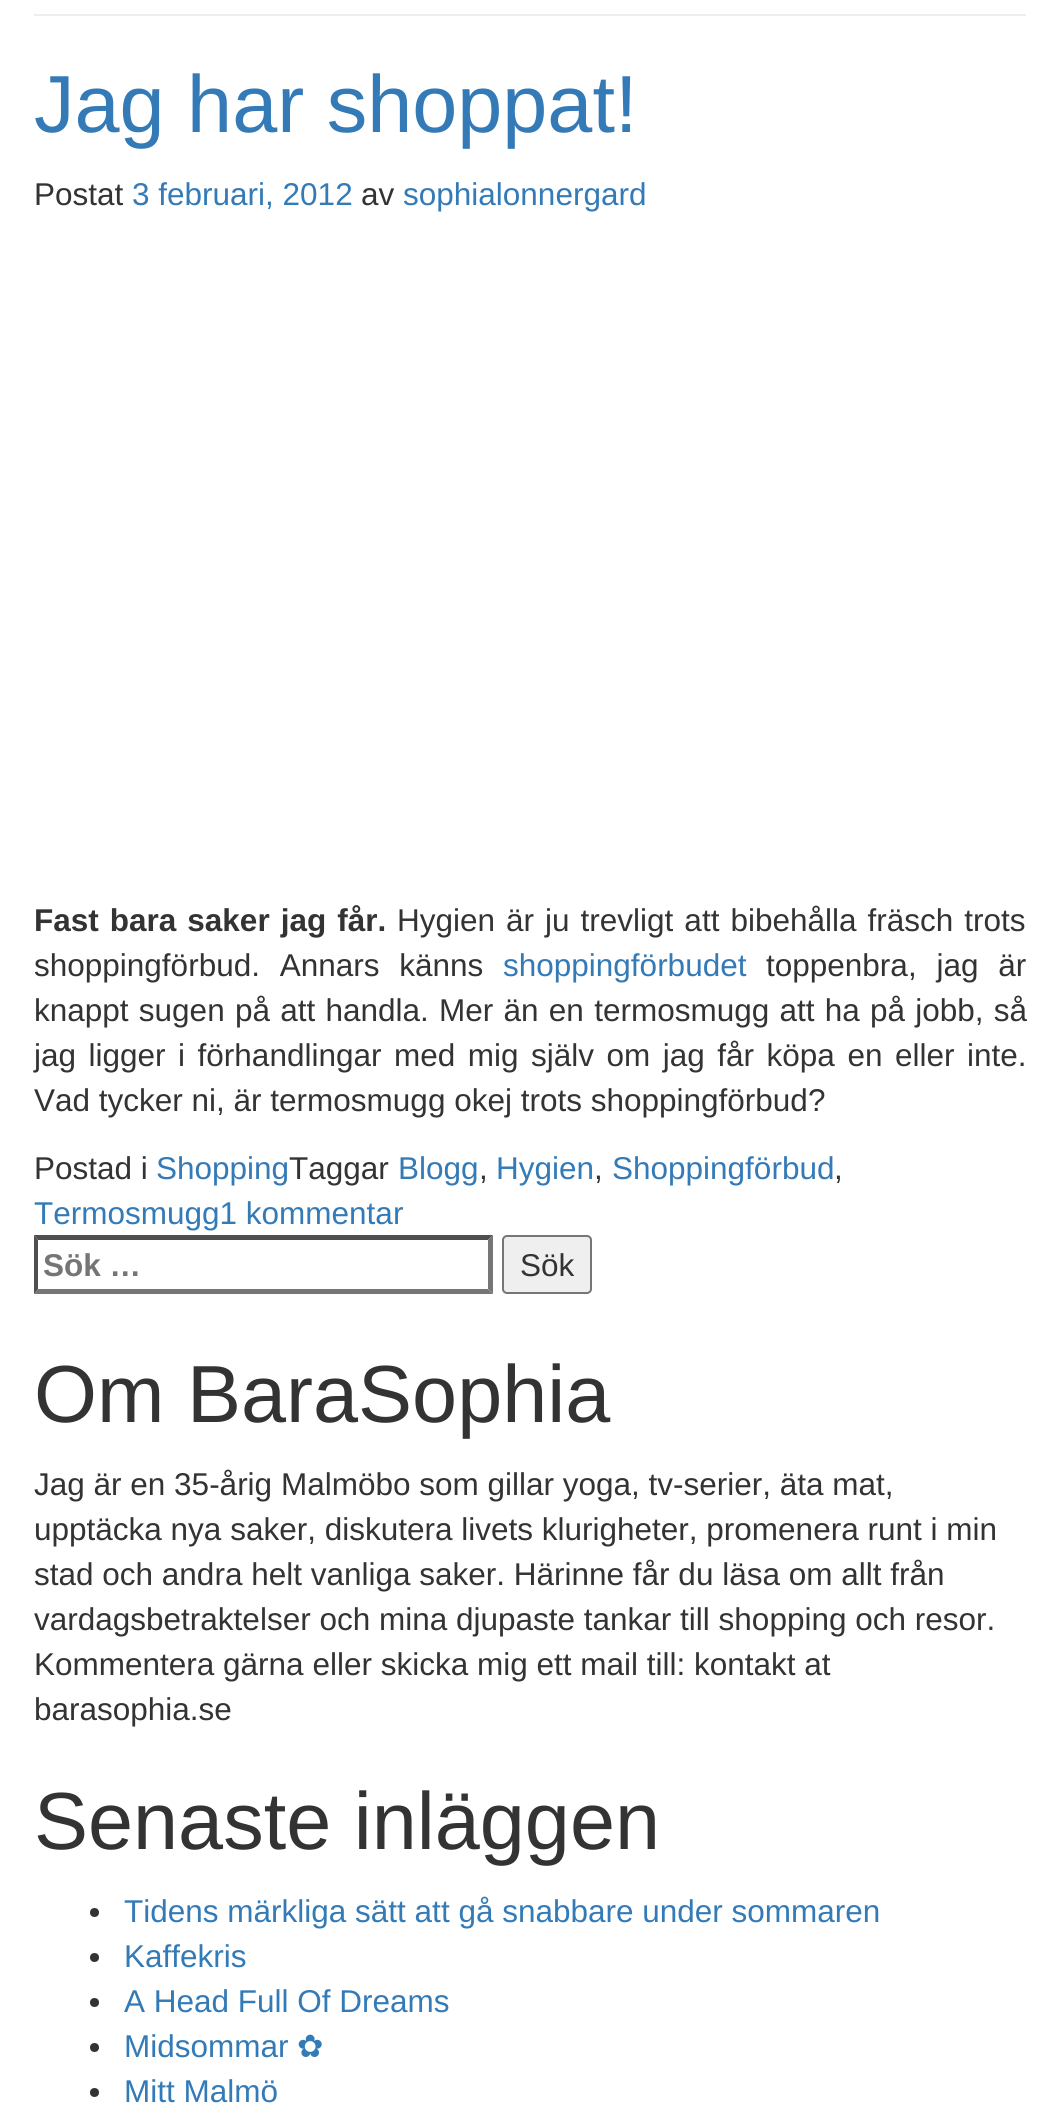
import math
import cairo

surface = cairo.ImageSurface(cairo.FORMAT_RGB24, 1058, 2122)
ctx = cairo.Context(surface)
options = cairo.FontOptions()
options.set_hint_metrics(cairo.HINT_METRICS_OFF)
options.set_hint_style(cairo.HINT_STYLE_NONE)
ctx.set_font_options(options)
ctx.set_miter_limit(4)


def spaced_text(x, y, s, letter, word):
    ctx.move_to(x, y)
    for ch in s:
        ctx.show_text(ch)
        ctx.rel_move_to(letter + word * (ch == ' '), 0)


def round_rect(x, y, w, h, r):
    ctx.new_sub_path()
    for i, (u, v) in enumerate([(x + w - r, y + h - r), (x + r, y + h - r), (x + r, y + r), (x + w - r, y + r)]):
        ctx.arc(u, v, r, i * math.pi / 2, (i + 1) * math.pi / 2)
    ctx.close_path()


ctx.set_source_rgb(1, 1, 1)
ctx.paint()
ctx.set_source_rgb(0.933, 0.933, 0.933)
ctx.rectangle(34, 14, 992, 2)
ctx.fill()
ctx.select_font_face("Liberation Sans")
ctx.set_font_size(81)
ctx.set_source_rgb(0.2, 0.478, 0.718)
ctx.move_to(34, 132)
ctx.show_text("Jag har shoppat!")
ctx.set_font_size(31.5)
ctx.set_source_rgb(0.2, 0.2, 0.2)
ctx.move_to(34, 205)
ctx.show_text("Postat")
ctx.set_source_rgb(0.2, 0.478, 0.718)
ctx.move_to(132, 205)
ctx.show_text("3 februari, 2012")
ctx.set_source_rgb(0.2, 0.2, 0.2)
ctx.move_to(361, 205)
ctx.show_text("av")
ctx.set_source_rgb(0.2, 0.478, 0.718)
ctx.move_to(403, 205)
ctx.show_text("sophialonnergard")
ctx.select_font_face("Liberation Sans", cairo.FONT_SLANT_NORMAL, cairo.FONT_WEIGHT_BOLD)
ctx.set_source_rgb(0.2, 0.2, 0.2)
spaced_text(34, 931, "Fast bara saker jag får.", 0, 2.25)
ctx.select_font_face("Liberation Sans")
spaced_text(397, 931, "Hygien är ju trevligt att bibehålla fräsch trots", 0, 2.25)
spaced_text(34, 976, "shoppingförbud. Annars känns", 0, 11)
ctx.set_source_rgb(0.2, 0.478, 0.718)
ctx.move_to(503, 976)
ctx.show_text("shoppingförbudet")
ctx.set_source_rgb(0.2, 0.2, 0.2)
spaced_text(766, 976, "toppenbra, jag är", 0, 11)
spaced_text(34, 1021, "knappt sugen på att handla. Mer än en termosmugg att ha på jobb, så", 0, 1.5)
spaced_text(34, 1066, "jag ligger i förhandlingar med mig själv om jag får köpa en eller inte.", 0, 3.75)
ctx.move_to(34, 1111)
ctx.show_text("Vad tycker ni, är termosmugg okej trots shoppingförbud?")
ctx.move_to(34, 1179)
ctx.show_text("Postad i")
ctx.set_source_rgb(0.2, 0.478, 0.718)
ctx.move_to(156, 1179)
ctx.show_text("Shopping")
ctx.set_source_rgb(0.2, 0.2, 0.2)
ctx.move_to(289, 1179)
ctx.show_text("Taggar")
ctx.set_source_rgb(0.2, 0.478, 0.718)
ctx.move_to(398, 1179)
ctx.show_text("Blogg")
ctx.set_source_rgb(0.2, 0.2, 0.2)
ctx.move_to(479, 1179)
ctx.show_text(",")
ctx.set_source_rgb(0.2, 0.478, 0.718)
ctx.move_to(496, 1179)
ctx.show_text("Hygien")
ctx.set_source_rgb(0.2, 0.2, 0.2)
ctx.move_to(594, 1179)
ctx.show_text(",")
ctx.set_source_rgb(0.2, 0.478, 0.718)
ctx.move_to(612, 1179)
ctx.show_text("Shoppingförbud")
ctx.set_source_rgb(0.2, 0.2, 0.2)
ctx.move_to(834, 1179)
ctx.show_text(",")
ctx.set_source_rgb(0.2, 0.478, 0.718)
ctx.move_to(34, 1224)
ctx.show_text("Termosmugg1 kommentar")
ctx.set_source_rgb(0.31, 0.31, 0.31)
ctx.new_path()
ctx.move_to(34, 1235)
ctx.line_to(493, 1235)
ctx.line_to(488, 1240)
ctx.line_to(38, 1240)
ctx.close_path()
ctx.fill()
ctx.set_source_rgb(0.463, 0.463, 0.463)
ctx.new_path()
ctx.move_to(493, 1235)
ctx.line_to(493, 1294)
ctx.line_to(488, 1289)
ctx.line_to(488, 1240)
ctx.close_path()
ctx.fill()
ctx.new_path()
ctx.move_to(493, 1294)
ctx.line_to(34, 1294)
ctx.line_to(38, 1289)
ctx.line_to(488, 1289)
ctx.close_path()
ctx.fill()
ctx.set_source_rgb(0.31, 0.31, 0.31)
ctx.new_path()
ctx.move_to(34, 1294)
ctx.line_to(34, 1235)
ctx.line_to(38, 1240)
ctx.line_to(38, 1289)
ctx.close_path()
ctx.fill()
ctx.select_font_face("Liberation Sans", cairo.FONT_SLANT_NORMAL, cairo.FONT_WEIGHT_BOLD)
ctx.set_source_rgb(0.459, 0.459, 0.459)
ctx.move_to(43, 1276)
ctx.show_text("Sök …")
ctx.set_source_rgb(0.937, 0.937, 0.937)
round_rect(503, 1236, 88, 57, 4)
ctx.fill_preserve()
ctx.set_source_rgb(0.463, 0.463, 0.463)
ctx.stroke()
ctx.select_font_face("Liberation Sans")
ctx.set_source_rgb(0.2, 0.2, 0.2)
ctx.move_to(520, 1276)
ctx.show_text("Sök")
ctx.set_font_size(81)
ctx.move_to(34, 1422)
ctx.show_text("Om BaraSophia")
ctx.set_font_size(31.5)
ctx.move_to(34, 1495)
ctx.show_text("Jag är en 35-årig Malmöbo som gillar yoga, tv-serier, äta mat,")
ctx.move_to(34, 1540)
ctx.show_text("upptäcka nya saker, diskutera livets klurigheter, promenera runt i min")
ctx.move_to(34, 1585)
ctx.show_text("stad och andra helt vanliga saker. Härinne får du läsa om allt från")
ctx.move_to(34, 1630)
ctx.show_text("vardagsbetraktelser och mina djupaste tankar till shopping och resor.")
ctx.move_to(34, 1675)
ctx.show_text("Kommentera gärna eller skicka mig ett mail till: kontakt at")
ctx.move_to(34, 1720)
ctx.show_text("barasophia.se")
ctx.set_font_size(81)
ctx.move_to(34, 1849)
ctx.show_text("Senaste inläggen")
ctx.new_path()
ctx.arc(94.5, 1912.5, 4.5, 0, 2 * math.pi)
ctx.fill()
ctx.set_font_size(31.5)
ctx.set_source_rgb(0.2, 0.478, 0.718)
ctx.move_to(124, 1922)
ctx.show_text("Tidens märkliga sätt att gå snabbare under sommaren")
ctx.set_source_rgb(0.2, 0.2, 0.2)
ctx.new_path()
ctx.arc(94.5, 1957.5, 4.5, 0, 2 * math.pi)
ctx.fill()
ctx.set_source_rgb(0.2, 0.478, 0.718)
ctx.move_to(124, 1967)
ctx.show_text("Kaffekris")
ctx.set_source_rgb(0.2, 0.2, 0.2)
ctx.new_path()
ctx.arc(94.5, 2002.5, 4.5, 0, 2 * math.pi)
ctx.fill()
ctx.set_source_rgb(0.2, 0.478, 0.718)
ctx.move_to(124, 2012)
ctx.show_text("A Head Full Of Dreams")
ctx.set_source_rgb(0.2, 0.2, 0.2)
ctx.new_path()
ctx.arc(94.5, 2047.5, 4.5, 0, 2 * math.pi)
ctx.fill()
ctx.set_source_rgb(0.2, 0.478, 0.718)
ctx.move_to(124, 2057)
ctx.show_text("Midsommar")
ctx.select_font_face("DejaVu Sans")
ctx.move_to(297, 2057)
ctx.show_text("✿")
ctx.set_source_rgb(0.2, 0.2, 0.2)
ctx.new_path()
ctx.arc(94.5, 2092.5, 4.5, 0, 2 * math.pi)
ctx.fill()
ctx.select_font_face("Liberation Sans")
ctx.set_source_rgb(0.2, 0.478, 0.718)
ctx.move_to(124, 2102)
ctx.show_text("Mitt Malmö")
surface.write_to_png("page.png")
